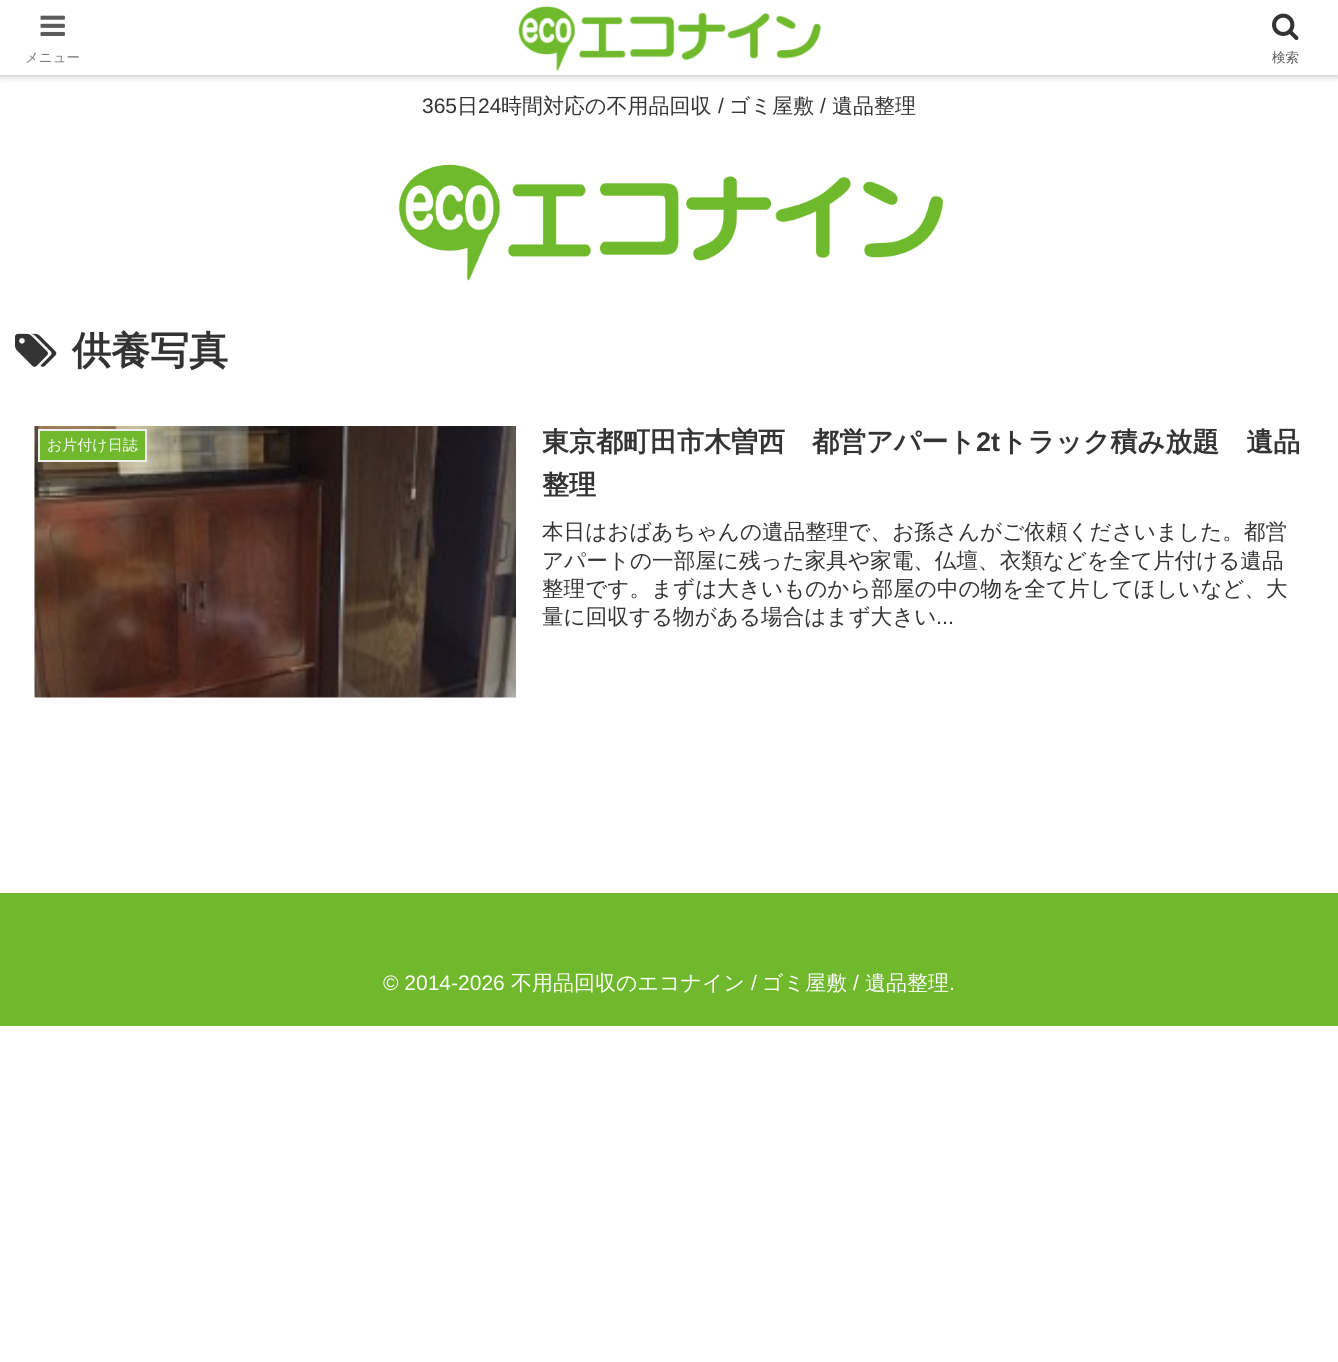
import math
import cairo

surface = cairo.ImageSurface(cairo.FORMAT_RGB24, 1338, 1362)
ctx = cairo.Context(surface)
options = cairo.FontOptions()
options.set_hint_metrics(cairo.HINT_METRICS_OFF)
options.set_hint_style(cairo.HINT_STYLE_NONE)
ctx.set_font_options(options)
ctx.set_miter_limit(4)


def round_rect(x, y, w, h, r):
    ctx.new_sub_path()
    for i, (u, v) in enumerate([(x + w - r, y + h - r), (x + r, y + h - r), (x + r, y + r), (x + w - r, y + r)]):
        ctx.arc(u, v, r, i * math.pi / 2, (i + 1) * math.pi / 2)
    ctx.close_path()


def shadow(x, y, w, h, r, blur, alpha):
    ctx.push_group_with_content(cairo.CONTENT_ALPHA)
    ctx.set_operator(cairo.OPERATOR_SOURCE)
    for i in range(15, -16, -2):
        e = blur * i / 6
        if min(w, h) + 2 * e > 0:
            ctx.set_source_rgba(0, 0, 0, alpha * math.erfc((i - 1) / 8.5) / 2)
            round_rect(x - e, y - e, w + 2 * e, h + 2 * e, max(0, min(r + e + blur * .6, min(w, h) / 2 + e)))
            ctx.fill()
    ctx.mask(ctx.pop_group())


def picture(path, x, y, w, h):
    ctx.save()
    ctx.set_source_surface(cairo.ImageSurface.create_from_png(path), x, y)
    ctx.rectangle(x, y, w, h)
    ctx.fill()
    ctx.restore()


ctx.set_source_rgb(1, 1, 1)
ctx.paint()
ctx.save()
ctx.rectangle(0, 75, 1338, 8)
ctx.clip()
ctx.set_source_rgb(0.663, 0.663, 0.663)
shadow(0, 0, 1338, 75, 0, 4, 1)
ctx.restore()
picture("img1.png", 40, 15, 25, 21)
ctx.select_font_face("WenQuanYi Zen Hei Medium")
ctx.set_font_size(13.5)
ctx.set_source_rgb(0.486, 0.486, 0.486)
ctx.move_to(25, 62)
ctx.show_text("メニュー")
picture("img2.png", 518, 6, 303, 66)
picture("img3.png", 1272, 13, 27, 28)
ctx.set_source_rgb(0.361, 0.361, 0.361)
ctx.move_to(1272, 62)
ctx.show_text("検索")
ctx.select_font_face("Liberation Sans")
ctx.set_font_size(21)
ctx.set_source_rgb(0.2, 0.2, 0.2)
ctx.move_to(422, 113)
ctx.show_text("365")
ctx.select_font_face("WenQuanYi Zen Hei Medium")
ctx.move_to(457, 113)
ctx.show_text("日")
ctx.select_font_face("Liberation Sans")
ctx.move_to(478, 113)
ctx.show_text("24")
ctx.select_font_face("WenQuanYi Zen Hei Medium")
ctx.move_to(501, 113)
ctx.show_text("時間対応の不用品回収")
ctx.select_font_face("Liberation Sans")
ctx.move_to(718, 113)
ctx.show_text("/")
ctx.select_font_face("WenQuanYi Zen Hei Medium")
ctx.move_to(729, 113)
ctx.show_text("ゴミ屋敷")
ctx.select_font_face("Liberation Sans")
ctx.move_to(820, 113)
ctx.show_text("/")
ctx.select_font_face("WenQuanYi Zen Hei Medium")
ctx.move_to(832, 113)
ctx.show_text("遺品整理")
picture("img4.png", 399, 164, 545, 117)
picture("img5.png", 15, 333, 42, 34)
ctx.select_font_face("WenQuanYi Zen Hei", cairo.FONT_SLANT_NORMAL, cairo.FONT_WEIGHT_BOLD)
ctx.set_font_size(39)
ctx.move_to(72, 364)
ctx.show_text("供養写真")
picture("img6.png", 34, 426, 482, 272)
ctx.set_source_rgb(0.439, 0.725, 0.173)
ctx.rectangle(39, 430, 107, 31)
ctx.fill_preserve()
ctx.set_source_rgb(0.933, 0.933, 0.933)
ctx.stroke()
ctx.select_font_face("WenQuanYi Zen Hei Medium")
ctx.set_font_size(15)
ctx.set_source_rgb(1, 1, 1)
ctx.move_to(47, 450)
ctx.show_text("お片付け日誌")
ctx.select_font_face("WenQuanYi Zen Hei", cairo.FONT_SLANT_NORMAL, cairo.FONT_WEIGHT_BOLD)
ctx.set_font_size(27)
ctx.set_source_rgb(0.2, 0.2, 0.2)
ctx.move_to(542, 451)
ctx.show_text("東京都町田市木曽西　都営アパート")
ctx.select_font_face("Liberation Sans", cairo.FONT_SLANT_NORMAL, cairo.FONT_WEIGHT_BOLD)
ctx.move_to(976, 451)
ctx.show_text("2t")
ctx.select_font_face("WenQuanYi Zen Hei", cairo.FONT_SLANT_NORMAL, cairo.FONT_WEIGHT_BOLD)
ctx.move_to(1000, 451)
ctx.show_text("トラック積み放題　遺品")
ctx.move_to(542, 494)
ctx.show_text("整理")
ctx.select_font_face("WenQuanYi Zen Hei Medium")
ctx.set_font_size(21.6)
ctx.move_to(542, 539)
ctx.show_text("本日はおばあちゃんの遺品整理で、お孫さんがご依頼くださいました。都営")
ctx.move_to(542, 568)
ctx.show_text("アパートの一部屋に残った家具や家電、仏壇、衣類などを全て片付ける遺品")
ctx.move_to(542, 596)
ctx.show_text("整理です。まずは大きいものから部屋の中の物を全て片してほしいなど、大")
ctx.move_to(542, 624)
ctx.show_text("量に回収する物がある場合はまず大きい")
ctx.select_font_face("Liberation Sans")
ctx.move_to(936, 624)
ctx.show_text("...")
ctx.set_source_rgb(0.439, 0.725, 0.173)
ctx.rectangle(0, 893, 1338, 133)
ctx.fill()
ctx.set_font_size(21)
ctx.set_source_rgb(1, 1, 1)
ctx.move_to(383, 990)
ctx.show_text("© 2014-2026")
ctx.select_font_face("WenQuanYi Zen Hei Medium")
ctx.move_to(511, 990)
ctx.show_text("不用品回収のエコナイン")
ctx.select_font_face("Liberation Sans")
ctx.move_to(751, 990)
ctx.show_text("/")
ctx.select_font_face("WenQuanYi Zen Hei Medium")
ctx.move_to(762, 990)
ctx.show_text("ゴミ屋敷")
ctx.select_font_face("Liberation Sans")
ctx.move_to(853, 990)
ctx.show_text("/")
ctx.select_font_face("WenQuanYi Zen Hei Medium")
ctx.move_to(865, 990)
ctx.show_text("遺品整理")
ctx.select_font_face("Liberation Sans")
ctx.move_to(949, 990)
ctx.show_text(".")
surface.write_to_png("page.png")
